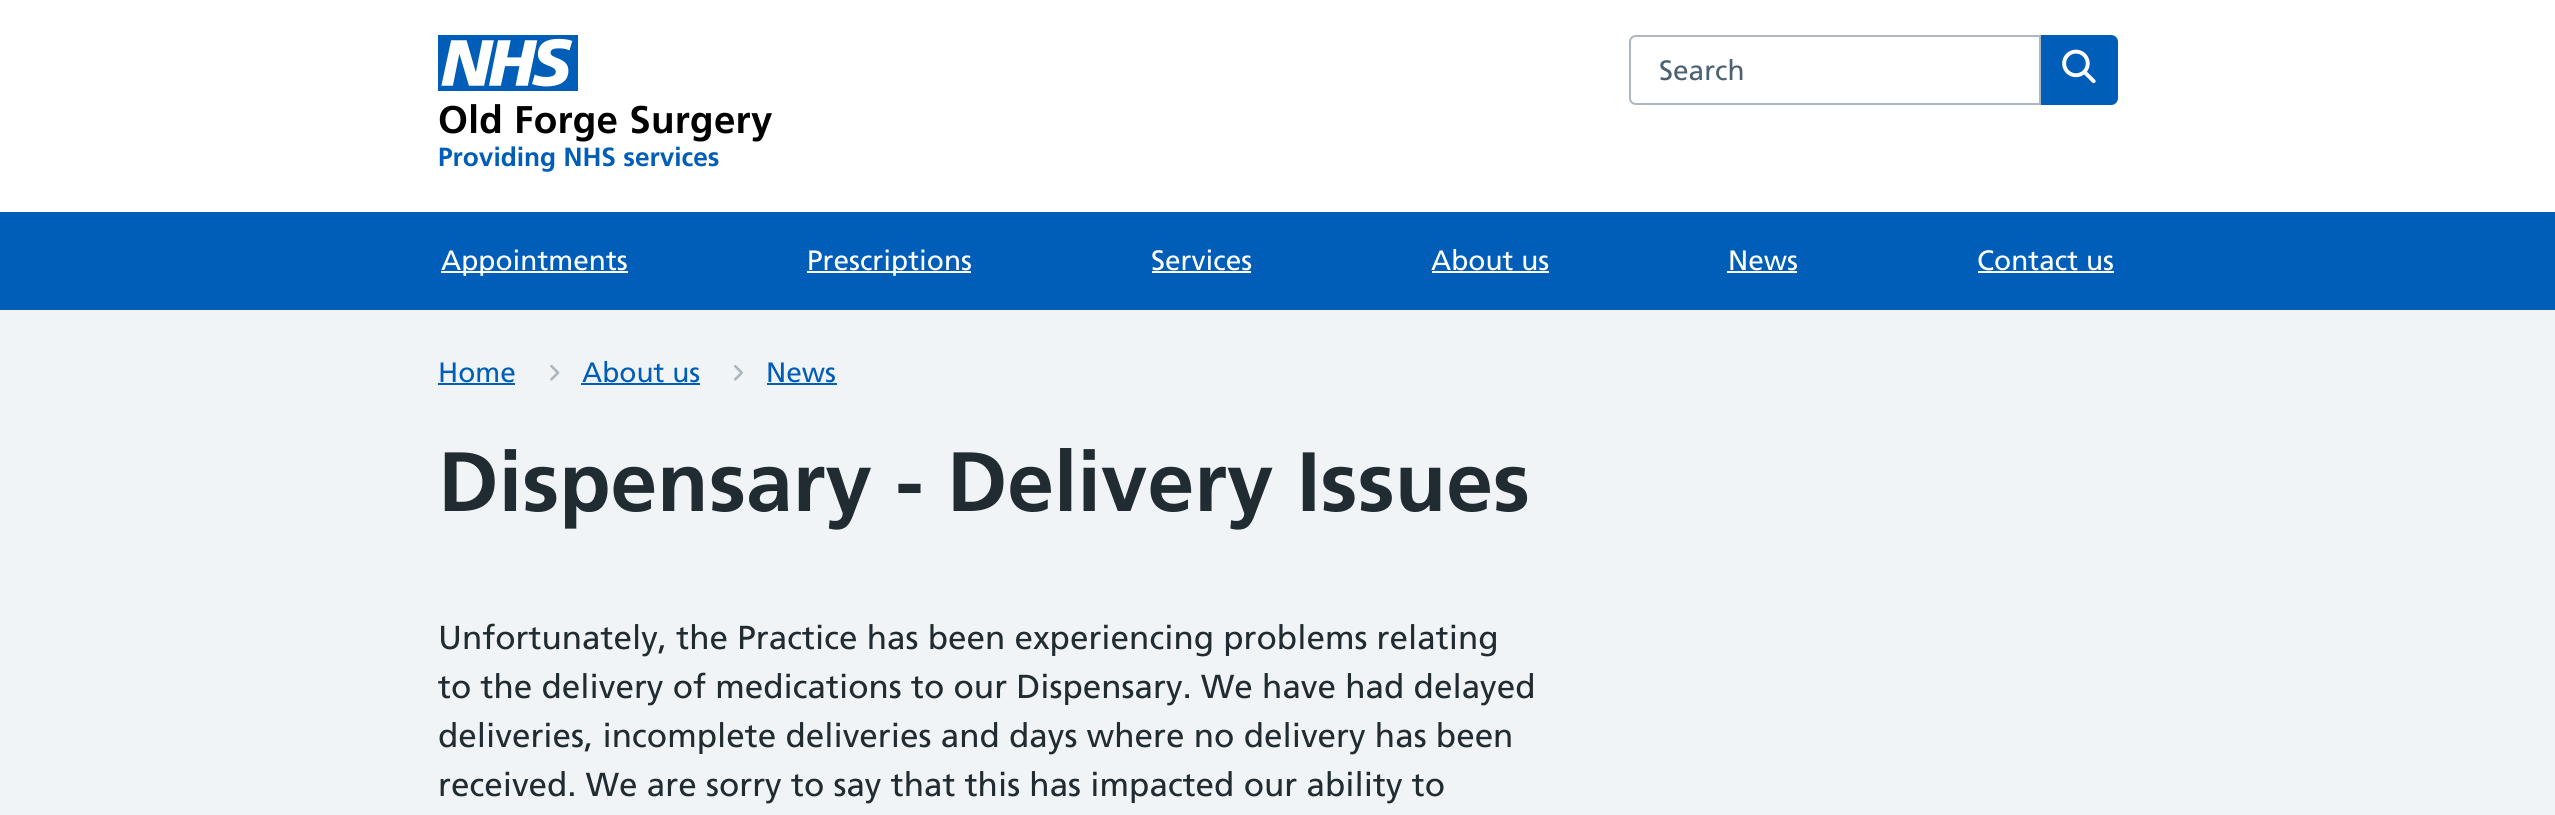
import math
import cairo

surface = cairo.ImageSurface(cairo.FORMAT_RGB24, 2555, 815)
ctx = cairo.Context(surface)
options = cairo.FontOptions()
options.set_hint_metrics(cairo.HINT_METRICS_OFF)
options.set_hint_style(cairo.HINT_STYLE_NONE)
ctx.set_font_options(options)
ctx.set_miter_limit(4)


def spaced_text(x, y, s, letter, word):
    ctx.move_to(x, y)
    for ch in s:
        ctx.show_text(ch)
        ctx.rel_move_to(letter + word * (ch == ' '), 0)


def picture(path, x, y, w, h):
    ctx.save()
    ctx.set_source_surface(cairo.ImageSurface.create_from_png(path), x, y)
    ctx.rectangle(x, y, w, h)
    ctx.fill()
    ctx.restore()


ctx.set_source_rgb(0.941, 0.957, 0.961)
ctx.paint()
ctx.set_source_rgb(1, 1, 1)
ctx.rectangle(0, 0, 2555, 212)
ctx.fill()
ctx.new_path()
ctx.move_to(1636, 36)
ctx.line_to(2040, 36)
ctx.line_to(2040, 104)
ctx.line_to(1636, 104)
ctx.curve_to(1632.5, 104, 1630, 101.5, 1630, 98)
ctx.line_to(1630, 42)
ctx.curve_to(1630, 38.5, 1632.5, 36, 1636, 36)
ctx.close_path()
ctx.set_source_rgb(0.682, 0.718, 0.741)
ctx.stroke()
ctx.select_font_face("Frutiger")
ctx.set_font_size(28)
ctx.set_source_rgb(0.298, 0.384, 0.447)
ctx.move_to(1659, 80)
ctx.show_text("Search")
ctx.set_source_rgb(0, 0.369, 0.722)
ctx.new_path()
ctx.move_to(2041, 35)
ctx.line_to(2111, 35)
ctx.curve_to(2115, 35, 2118, 38, 2118, 42)
ctx.line_to(2118, 98)
ctx.curve_to(2118, 102, 2115, 105, 2111, 105)
ctx.line_to(2041, 105)
ctx.close_path()
ctx.fill()
picture("img1.png", 2062, 49, 34, 35)
picture("img2.png", 438, 35, 140, 56)
ctx.select_font_face("Frutiger", cairo.FONT_SLANT_NORMAL, cairo.FONT_WEIGHT_BOLD)
ctx.set_font_size(38.5)
ctx.set_source_rgb(0, 0, 0)
spaced_text(438, 133, "Old Forge Surgery", 0.3, 0)
ctx.set_font_size(26.25)
ctx.set_source_rgb(0, 0.369, 0.722)
ctx.move_to(438, 166)
ctx.show_text("Providing NHS services")
ctx.rectangle(0, 212, 2555, 98)
ctx.fill()
ctx.set_source_rgb(1, 1, 1)
ctx.rectangle(441, 271, 187, 2)
ctx.fill()
ctx.select_font_face("Frutiger")
ctx.set_font_size(28)
ctx.move_to(441, 270)
ctx.show_text("Appointments")
ctx.rectangle(807, 271, 164, 2)
ctx.fill()
ctx.move_to(807, 270)
ctx.show_text("Prescriptions")
ctx.move_to(1151, 270)
ctx.show_text("Services")
ctx.rectangle(1152, 271, 99, 2)
ctx.fill()
ctx.move_to(1431, 270)
ctx.show_text("About us")
ctx.rectangle(1432, 271, 117, 2)
ctx.fill()
ctx.move_to(1728, 270)
ctx.show_text("News")
ctx.rectangle(1727, 271, 70, 2)
ctx.fill()
ctx.move_to(1977, 270)
ctx.show_text("Contact us")
ctx.rectangle(1978, 271, 136, 2)
ctx.fill()
ctx.set_source_rgb(0, 0.369, 0.722)
ctx.move_to(438, 382)
ctx.show_text("Home")
ctx.rectangle(438, 383, 77, 2)
ctx.fill()
picture("img3.png", 550, 364, 10, 17)
ctx.move_to(582, 382)
ctx.show_text("About us")
ctx.rectangle(581, 383, 119, 2)
ctx.fill()
picture("img4.png", 734, 364, 9, 17)
ctx.move_to(766, 382)
ctx.show_text("News")
ctx.rectangle(767, 383, 70, 2)
ctx.fill()
ctx.select_font_face("Frutiger", cairo.FONT_SLANT_NORMAL, cairo.FONT_WEIGHT_BOLD)
ctx.set_font_size(84)
ctx.set_source_rgb(0.129, 0.169, 0.196)
ctx.move_to(438, 511)
ctx.show_text("Dispensary - Delivery Issues")
ctx.select_font_face("Frutiger")
ctx.set_font_size(33.25)
ctx.move_to(438, 649)
ctx.show_text("Unfortunately, the Practice has been experiencing problems relating")
ctx.move_to(438, 698)
ctx.show_text("to the delivery of medications to our Dispensary. We have had delayed")
ctx.move_to(438, 747)
ctx.show_text("deliveries, incomplete deliveries and days where no delivery has been")
ctx.move_to(438, 796)
ctx.show_text("received. We are sorry to say that this has impacted our ability to")
surface.write_to_png("page.png")
